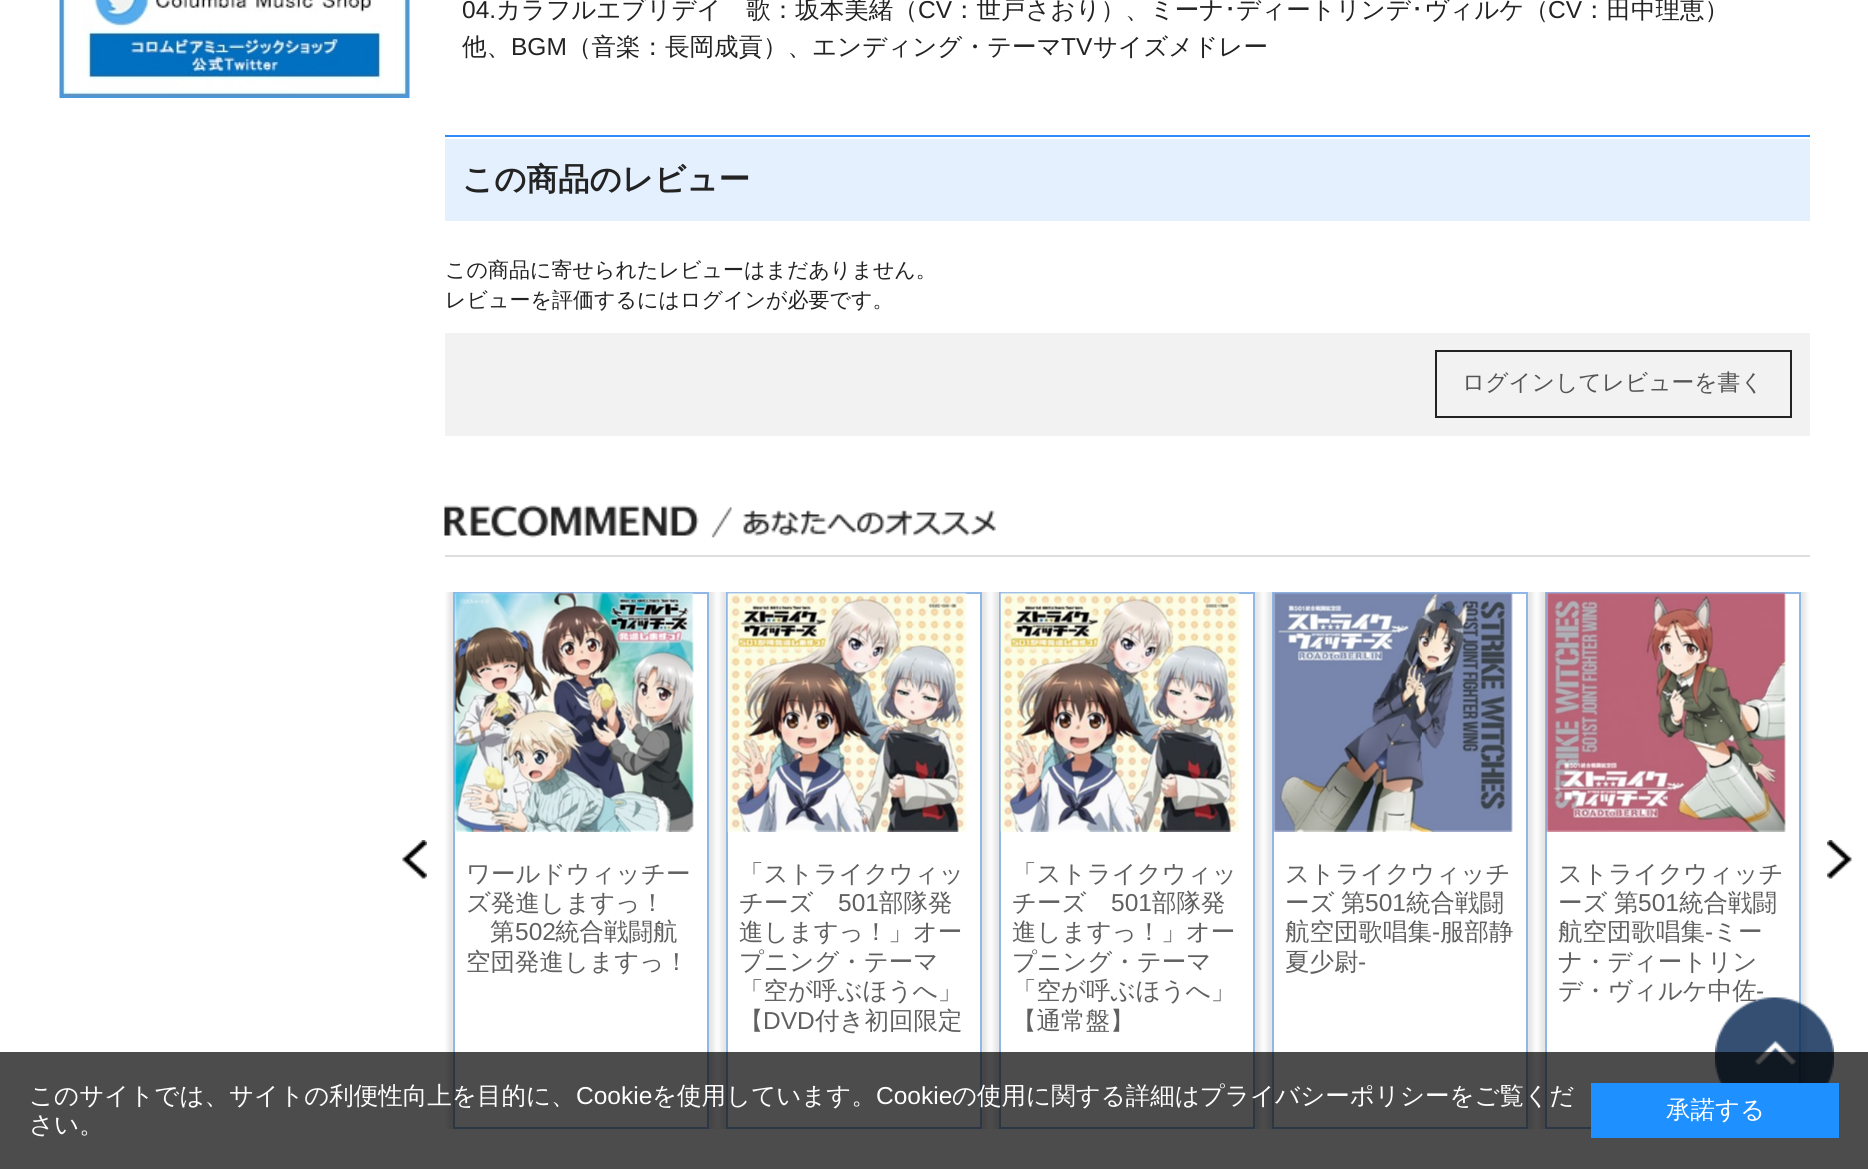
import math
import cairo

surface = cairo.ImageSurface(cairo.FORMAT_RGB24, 1868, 1169)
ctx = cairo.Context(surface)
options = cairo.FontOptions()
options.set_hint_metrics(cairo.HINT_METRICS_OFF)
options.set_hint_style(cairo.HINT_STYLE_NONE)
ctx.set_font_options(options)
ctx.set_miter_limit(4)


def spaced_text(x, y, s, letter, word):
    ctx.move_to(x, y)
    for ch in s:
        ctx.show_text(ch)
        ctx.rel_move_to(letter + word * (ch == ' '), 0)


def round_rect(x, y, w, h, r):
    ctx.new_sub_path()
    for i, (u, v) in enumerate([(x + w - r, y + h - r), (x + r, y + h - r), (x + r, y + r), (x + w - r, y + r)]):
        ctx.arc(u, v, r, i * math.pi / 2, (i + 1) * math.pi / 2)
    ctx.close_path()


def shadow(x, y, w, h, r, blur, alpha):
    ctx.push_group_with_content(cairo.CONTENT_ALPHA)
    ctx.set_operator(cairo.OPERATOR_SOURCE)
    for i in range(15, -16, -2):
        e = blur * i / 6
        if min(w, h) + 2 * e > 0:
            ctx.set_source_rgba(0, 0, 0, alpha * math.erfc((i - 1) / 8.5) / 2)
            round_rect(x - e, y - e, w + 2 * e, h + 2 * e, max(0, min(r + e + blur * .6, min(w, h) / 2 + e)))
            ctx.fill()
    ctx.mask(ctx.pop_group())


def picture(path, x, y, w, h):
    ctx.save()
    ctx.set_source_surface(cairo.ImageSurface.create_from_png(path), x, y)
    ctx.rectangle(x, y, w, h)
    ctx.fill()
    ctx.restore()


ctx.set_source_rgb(1, 1, 1)
ctx.paint()
picture("img1.png", 59, 0, 351, 98)
ctx.select_font_face("Liberation Sans")
ctx.set_font_size(24.5)
ctx.set_source_rgb(0.137, 0.137, 0.137)
ctx.move_to(462, 18)
ctx.show_text("04.")
ctx.select_font_face("WenQuanYi Zen Hei Medium")
ctx.move_to(496, 18)
ctx.show_text("カラフルエブリデイ　歌：坂本美緒（")
ctx.select_font_face("Liberation Sans")
ctx.move_to(918, 18)
ctx.show_text("CV")
ctx.select_font_face("WenQuanYi Zen Hei Medium")
ctx.move_to(952, 18)
ctx.show_text("：世戸さおり）、ミーナ")
ctx.select_font_face("IPAPGothic")
ctx.move_to(1224, 18)
ctx.show_text("･")
ctx.select_font_face("WenQuanYi Zen Hei Medium")
ctx.move_to(1236, 18)
ctx.show_text("ディートリンデ")
ctx.select_font_face("IPAPGothic")
ctx.move_to(1411, 18)
ctx.show_text("･")
ctx.select_font_face("WenQuanYi Zen Hei Medium")
ctx.move_to(1424, 18)
ctx.show_text("ヴィルケ（")
ctx.select_font_face("Liberation Sans")
ctx.move_to(1548, 18)
ctx.show_text("CV")
ctx.select_font_face("WenQuanYi Zen Hei Medium")
ctx.move_to(1582, 18)
ctx.show_text("：田中理恵）")
ctx.move_to(462, 55)
ctx.show_text("他、")
ctx.select_font_face("Liberation Sans")
ctx.move_to(511, 55)
ctx.show_text("BGM")
ctx.select_font_face("WenQuanYi Zen Hei Medium")
ctx.move_to(567, 55)
ctx.show_text("（音楽：長岡成貢）、エンディング・テーマ")
ctx.select_font_face("Liberation Sans")
ctx.move_to(1061, 55)
ctx.show_text("TV")
ctx.select_font_face("WenQuanYi Zen Hei Medium")
ctx.move_to(1093, 55)
ctx.show_text("サイズメドレー")
ctx.set_source_rgb(0.188, 0.541, 0.988)
ctx.rectangle(445, 135, 1365, 2)
ctx.fill()
ctx.set_source_rgb(0.898, 0.941, 1)
ctx.rectangle(445, 139, 1365, 82)
ctx.fill()
ctx.select_font_face("WenQuanYi Zen Hei", cairo.FONT_SLANT_NORMAL, cairo.FONT_WEIGHT_BOLD)
ctx.set_font_size(31.5)
ctx.set_source_rgb(0.137, 0.137, 0.137)
ctx.move_to(462, 190)
ctx.show_text("この商品のレビュー")
ctx.select_font_face("WenQuanYi Zen Hei Medium")
ctx.set_font_size(21)
ctx.move_to(445, 277)
ctx.show_text("この商品に寄せられたレビューはまだありません。")
ctx.move_to(445, 307)
ctx.show_text("レビューを評価するにはログインが必要です。")
ctx.set_source_rgb(0.949, 0.949, 0.949)
ctx.rectangle(445, 333, 1365, 103)
ctx.fill()
ctx.rectangle(1436, 351, 355, 66)
ctx.set_source_rgb(0.137, 0.137, 0.137)
ctx.stroke()
ctx.set_font_size(22.75)
ctx.set_source_rgb(0.329, 0.329, 0.329)
ctx.move_to(1462, 390)
ctx.show_text("ログインしてレビューを書く")
ctx.set_source_rgb(0.867, 0.867, 0.867)
ctx.rectangle(445, 555, 1365, 2)
ctx.fill()
picture("img2.png", 444, 505, 552, 33)
picture("img3.png", 402, 840, 25, 39)
picture("img4.png", 1827, 840, 25, 39)
ctx.save()
ctx.rectangle(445, 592, 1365, 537)
ctx.clip()
ctx.set_source_rgb(0.898, 0.898, 0.898)
shadow(448, 586, 266, 548, 0, 2.5, 1)
ctx.restore()
ctx.set_source_rgb(1, 1, 1)
ctx.rectangle(454, 593, 254, 535)
ctx.fill_preserve()
ctx.set_source_rgb(0.569, 0.718, 0.902)
ctx.stroke()
picture("img5.png", 454, 592, 240, 240)
ctx.set_font_size(24.5)
ctx.set_source_rgb(0.376, 0.376, 0.376)
ctx.move_to(466, 882)
ctx.show_text("ワールドウィッチー")
ctx.move_to(466, 911)
ctx.show_text("ズ発進しますっ！")
ctx.move_to(490, 940)
ctx.show_text("第")
ctx.select_font_face("Liberation Sans")
ctx.move_to(515, 940)
ctx.show_text("502")
ctx.select_font_face("WenQuanYi Zen Hei Medium")
ctx.move_to(555, 940)
ctx.show_text("統合戦闘航")
ctx.move_to(466, 970)
ctx.show_text("空団発進しますっ！")
ctx.save()
ctx.rectangle(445, 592, 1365, 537)
ctx.clip()
ctx.set_source_rgb(0.898, 0.898, 0.898)
shadow(721, 586, 266, 548, 0, 2.5, 1)
ctx.restore()
ctx.set_source_rgb(1, 1, 1)
ctx.rectangle(727, 593, 254, 535)
ctx.fill_preserve()
ctx.set_source_rgb(0.569, 0.718, 0.902)
ctx.stroke()
picture("img6.png", 727, 592, 240, 240)
ctx.set_source_rgb(0.376, 0.376, 0.376)
ctx.move_to(739, 882)
ctx.show_text("「ストライクウィッ")
ctx.move_to(739, 911)
ctx.show_text("チーズ")
ctx.select_font_face("Liberation Sans")
ctx.move_to(838, 911)
ctx.show_text("501")
ctx.select_font_face("WenQuanYi Zen Hei Medium")
ctx.move_to(879, 911)
ctx.show_text("部隊発")
ctx.move_to(739, 940)
ctx.show_text("進しますっ！」オー")
ctx.move_to(739, 970)
ctx.show_text("プニング・テーマ")
ctx.move_to(739, 999)
ctx.show_text("「空が呼ぶほうへ」")
ctx.move_to(739, 1029)
ctx.show_text("【")
ctx.select_font_face("Liberation Sans")
ctx.move_to(763, 1029)
ctx.show_text("DVD")
ctx.select_font_face("WenQuanYi Zen Hei Medium")
ctx.move_to(815, 1029)
ctx.show_text("付き初回限定")
ctx.save()
ctx.rectangle(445, 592, 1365, 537)
ctx.clip()
ctx.set_source_rgb(0.898, 0.898, 0.898)
shadow(994, 586, 266, 548, 0, 2.5, 1)
ctx.restore()
ctx.set_source_rgb(1, 1, 1)
ctx.rectangle(1000, 593, 254, 535)
ctx.fill_preserve()
ctx.set_source_rgb(0.569, 0.718, 0.902)
ctx.stroke()
picture("img7.png", 1000, 592, 240, 240)
ctx.set_source_rgb(0.376, 0.376, 0.376)
ctx.move_to(1012, 882)
ctx.show_text("「ストライクウィッ")
ctx.move_to(1012, 911)
ctx.show_text("チーズ")
ctx.select_font_face("Liberation Sans")
ctx.move_to(1111, 911)
ctx.show_text("501")
ctx.select_font_face("WenQuanYi Zen Hei Medium")
ctx.move_to(1152, 911)
ctx.show_text("部隊発")
ctx.move_to(1012, 940)
ctx.show_text("進しますっ！」オー")
ctx.move_to(1012, 970)
ctx.show_text("プニング・テーマ")
ctx.move_to(1012, 999)
ctx.show_text("「空が呼ぶほうへ」")
ctx.move_to(1012, 1029)
ctx.show_text("【通常盤】")
ctx.save()
ctx.rectangle(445, 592, 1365, 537)
ctx.clip()
ctx.set_source_rgb(0.898, 0.898, 0.898)
shadow(1267, 586, 266, 548, 0, 2.5, 1)
ctx.restore()
ctx.set_source_rgb(1, 1, 1)
ctx.rectangle(1273, 593, 254, 535)
ctx.fill_preserve()
ctx.set_source_rgb(0.569, 0.718, 0.902)
ctx.stroke()
picture("img8.png", 1273, 592, 240, 240)
ctx.set_source_rgb(0.376, 0.376, 0.376)
ctx.move_to(1285, 882)
ctx.show_text("ストライクウィッチ")
spaced_text(1285, 911, "ーズ 第", 0, -1)
ctx.select_font_face("Liberation Sans")
ctx.move_to(1365, 911)
ctx.show_text("501")
ctx.select_font_face("WenQuanYi Zen Hei Medium")
ctx.move_to(1406, 911)
ctx.show_text("統合戦闘")
ctx.move_to(1285, 940)
ctx.show_text("航空団歌唱集")
ctx.select_font_face("Liberation Sans")
ctx.move_to(1432, 940)
ctx.show_text("‐")
ctx.select_font_face("WenQuanYi Zen Hei Medium")
ctx.move_to(1440, 940)
ctx.show_text("服部静")
ctx.move_to(1285, 970)
ctx.show_text("夏少尉")
ctx.select_font_face("Liberation Sans")
ctx.move_to(1358, 970)
ctx.show_text("‐")
ctx.save()
ctx.rectangle(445, 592, 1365, 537)
ctx.clip()
ctx.set_source_rgb(0.898, 0.898, 0.898)
shadow(1540, 586, 266, 548, 0, 2.5, 1)
ctx.restore()
ctx.set_source_rgb(1, 1, 1)
ctx.rectangle(1546, 593, 254, 535)
ctx.fill_preserve()
ctx.set_source_rgb(0.569, 0.718, 0.902)
ctx.stroke()
picture("img9.png", 1546, 592, 240, 240)
ctx.select_font_face("WenQuanYi Zen Hei Medium")
ctx.set_source_rgb(0.376, 0.376, 0.376)
ctx.move_to(1558, 882)
ctx.show_text("ストライクウィッチ")
spaced_text(1558, 911, "ーズ 第", 0, -1)
ctx.select_font_face("Liberation Sans")
ctx.move_to(1638, 911)
ctx.show_text("501")
ctx.select_font_face("WenQuanYi Zen Hei Medium")
ctx.move_to(1679, 911)
ctx.show_text("統合戦闘")
ctx.move_to(1558, 940)
ctx.show_text("航空団歌唱集")
ctx.select_font_face("Liberation Sans")
ctx.move_to(1705, 940)
ctx.show_text("-")
ctx.select_font_face("WenQuanYi Zen Hei Medium")
ctx.move_to(1713, 940)
ctx.show_text("ミー")
ctx.move_to(1558, 970)
ctx.show_text("ナ・ディートリン")
ctx.move_to(1558, 999)
ctx.show_text("デ・ヴィルケ中佐")
ctx.select_font_face("Liberation Sans")
ctx.move_to(1756, 999)
ctx.show_text("-")
picture("img10.png", 1715, 997, 119, 86)
ctx.set_source_rgba(0, 0, 0, 0.7)
ctx.rectangle(0, 1052, 1868, 117)
ctx.fill()
ctx.select_font_face("WenQuanYi Zen Hei Medium")
ctx.set_source_rgb(1, 1, 1)
ctx.move_to(29, 1104)
ctx.show_text("このサイトでは、サイトの利便性向上を目的に、")
ctx.select_font_face("Liberation Sans")
ctx.move_to(576, 1104)
ctx.show_text("Cookie")
ctx.select_font_face("WenQuanYi Zen Hei Medium")
ctx.move_to(652, 1104)
ctx.show_text("を使用しています。")
ctx.select_font_face("Liberation Sans")
ctx.move_to(876, 1104)
ctx.show_text("Cookie")
ctx.select_font_face("WenQuanYi Zen Hei Medium")
ctx.move_to(952, 1104)
ctx.show_text("の使用に関する詳細はプライバシーポリシーをご覧くだ")
ctx.move_to(29, 1133)
ctx.show_text("さい。")
ctx.set_source_rgb(0.118, 0.565, 1)
ctx.rectangle(1591, 1083, 248, 55)
ctx.fill()
ctx.set_source_rgb(1, 1, 1)
ctx.move_to(1666, 1118)
ctx.show_text("承諾する")
surface.write_to_png("page.png")
